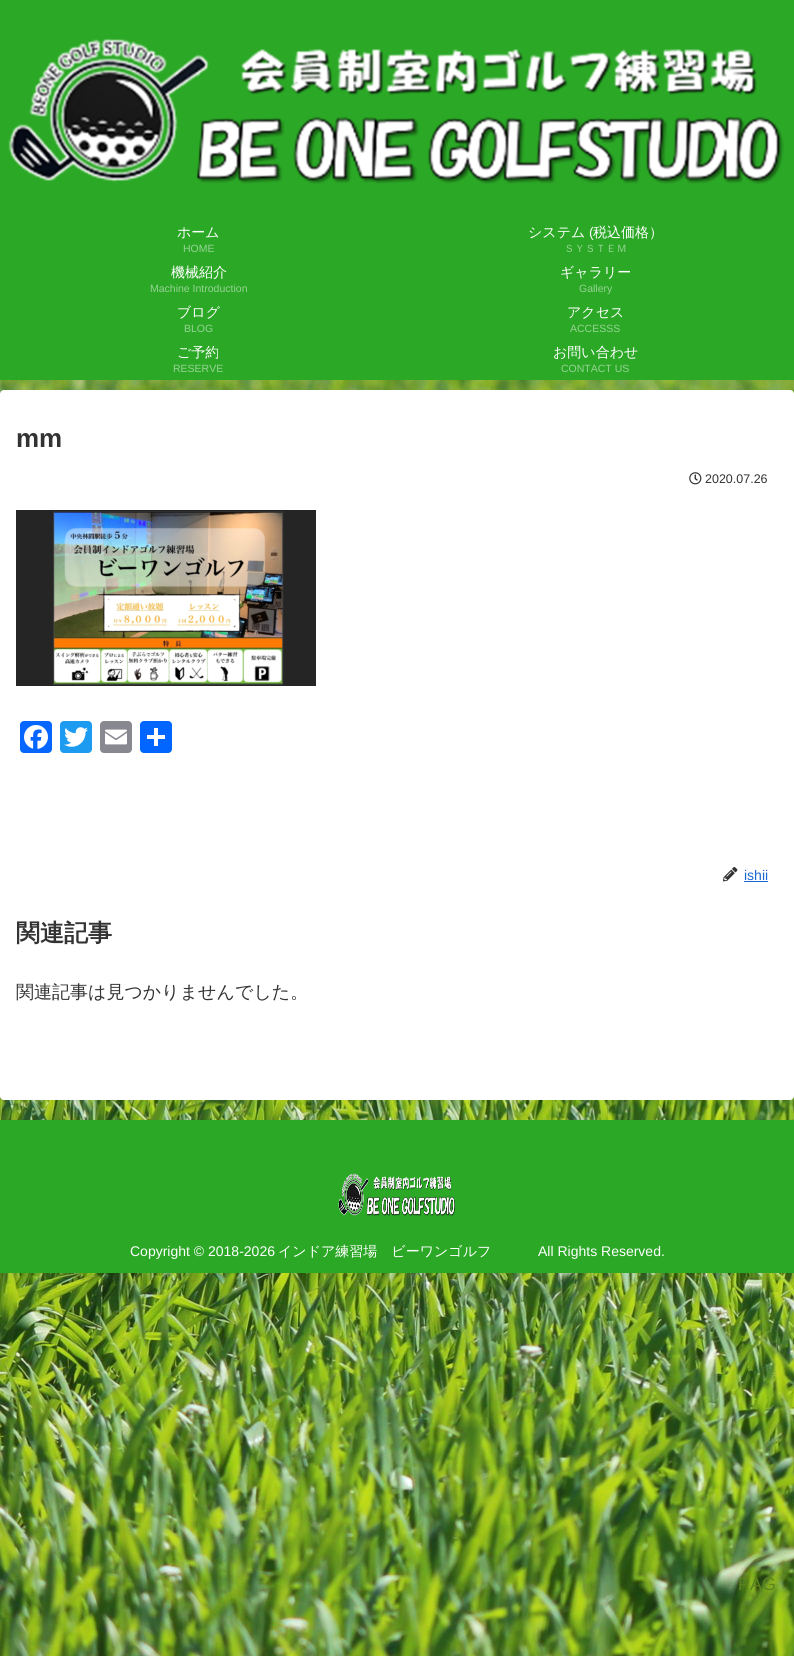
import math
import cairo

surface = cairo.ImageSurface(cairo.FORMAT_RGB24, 794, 1656)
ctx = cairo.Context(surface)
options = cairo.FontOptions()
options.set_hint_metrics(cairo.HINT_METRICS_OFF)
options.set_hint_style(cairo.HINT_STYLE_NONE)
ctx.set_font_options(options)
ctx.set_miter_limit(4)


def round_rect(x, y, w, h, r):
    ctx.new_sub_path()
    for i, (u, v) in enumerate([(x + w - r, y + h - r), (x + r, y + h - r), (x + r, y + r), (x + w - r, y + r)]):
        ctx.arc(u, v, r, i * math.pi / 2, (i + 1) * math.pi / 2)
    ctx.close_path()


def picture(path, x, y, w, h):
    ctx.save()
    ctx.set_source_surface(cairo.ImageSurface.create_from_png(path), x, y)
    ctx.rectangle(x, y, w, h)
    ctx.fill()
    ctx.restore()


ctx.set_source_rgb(1, 1, 1)
ctx.paint()
picture("img1.png", 0, 380, 794, 1276)
ctx.set_source_rgb(0.169, 0.659, 0.149)
ctx.rectangle(0, 0, 794, 380)
ctx.fill()
picture("img2.png", 8, 38, 776, 146)
ctx.select_font_face("WenQuanYi Zen Hei Medium")
ctx.set_font_size(14)
ctx.set_source_rgb(1, 1, 1)
ctx.move_to(177, 237)
ctx.show_text("ホーム")
ctx.select_font_face("Liberation Sans")
ctx.set_font_size(10.5)
ctx.set_source_rgb(0.584, 0.831, 0.576)
ctx.move_to(183, 252)
ctx.show_text("HOME")
ctx.select_font_face("WenQuanYi Zen Hei Medium")
ctx.set_font_size(14)
ctx.set_source_rgb(1, 1, 1)
ctx.move_to(528, 237)
ctx.show_text("システム")
ctx.select_font_face("Liberation Sans")
ctx.move_to(589, 237)
ctx.show_text("(")
ctx.select_font_face("WenQuanYi Zen Hei Medium")
ctx.move_to(593, 237)
ctx.show_text("税込価格）")
ctx.set_font_size(10.5)
ctx.set_source_rgb(0.584, 0.831, 0.576)
ctx.move_to(564, 252)
ctx.show_text("ＳＹＳＴＥＭ")
ctx.set_font_size(14)
ctx.set_source_rgb(1, 1, 1)
ctx.move_to(171, 277)
ctx.show_text("機械紹介")
ctx.select_font_face("Liberation Sans")
ctx.set_font_size(10.5)
ctx.set_source_rgb(0.584, 0.831, 0.576)
ctx.move_to(150, 292)
ctx.show_text("Machine Introduction")
ctx.select_font_face("WenQuanYi Zen Hei Medium")
ctx.set_font_size(14)
ctx.set_source_rgb(1, 1, 1)
ctx.move_to(560, 277)
ctx.show_text("ギャラリー")
ctx.select_font_face("Liberation Sans")
ctx.set_font_size(10.5)
ctx.set_source_rgb(0.584, 0.831, 0.576)
ctx.move_to(579, 292)
ctx.show_text("Gallery")
ctx.select_font_face("WenQuanYi Zen Hei Medium")
ctx.set_font_size(14)
ctx.set_source_rgb(1, 1, 1)
ctx.move_to(177, 317)
ctx.show_text("ブログ")
ctx.select_font_face("Liberation Sans")
ctx.set_font_size(10.5)
ctx.set_source_rgb(0.584, 0.831, 0.576)
ctx.move_to(184, 332)
ctx.show_text("BLOG")
ctx.select_font_face("WenQuanYi Zen Hei Medium")
ctx.set_font_size(14)
ctx.set_source_rgb(1, 1, 1)
ctx.move_to(567, 317)
ctx.show_text("アクセス")
ctx.select_font_face("Liberation Sans")
ctx.set_font_size(10.5)
ctx.set_source_rgb(0.584, 0.831, 0.576)
ctx.move_to(570, 332)
ctx.show_text("ACCESSS")
ctx.select_font_face("WenQuanYi Zen Hei Medium")
ctx.set_font_size(14)
ctx.set_source_rgb(1, 1, 1)
ctx.move_to(177, 357)
ctx.show_text("ご予約")
ctx.select_font_face("Liberation Sans")
ctx.set_font_size(10.5)
ctx.set_source_rgb(0.584, 0.831, 0.576)
ctx.move_to(173, 372)
ctx.show_text("RESERVE")
ctx.select_font_face("WenQuanYi Zen Hei Medium")
ctx.set_font_size(14)
ctx.set_source_rgb(1, 1, 1)
ctx.move_to(553, 357)
ctx.show_text("お問い合わせ")
ctx.select_font_face("Liberation Sans")
ctx.set_font_size(10.5)
ctx.set_source_rgb(0.584, 0.831, 0.576)
ctx.move_to(561, 372)
ctx.show_text("CONTACT US")
ctx.set_source_rgb(1, 1, 1)
round_rect(0, 390, 794, 710, 4)
ctx.fill()
ctx.select_font_face("Liberation Sans", cairo.FONT_SLANT_NORMAL, cairo.FONT_WEIGHT_BOLD)
ctx.set_font_size(26)
ctx.set_source_rgb(0.2, 0.2, 0.2)
ctx.move_to(16, 447)
ctx.show_text("mm")
picture("img3.png", 689, 472, 13, 13)
ctx.select_font_face("Liberation Sans")
ctx.set_font_size(12.5)
ctx.move_to(705, 483)
ctx.show_text("2020.07.26")
picture("img4.png", 16, 510, 300, 176)
ctx.set_source_rgb(0.031, 0.4, 1)
round_rect(20, 721, 32, 32, 4)
ctx.fill()
picture("img5.png", 24, 725, 24, 24)
ctx.set_source_rgb(0.114, 0.608, 0.941)
round_rect(60, 721, 32, 32, 4)
ctx.fill()
picture("img6.png", 64, 727, 24, 20)
ctx.set_source_rgb(0.533, 0.537, 0.565)
round_rect(100, 721, 32, 32, 4)
ctx.fill()
picture("img7.png", 105, 729, 22, 16)
ctx.set_source_rgb(0.004, 0.4, 1)
round_rect(140, 721, 32, 32, 4)
ctx.fill()
ctx.set_source_rgb(1, 1, 1)
ctx.rectangle(154, 728, 4, 18)
ctx.fill()
ctx.rectangle(147, 735, 18, 4)
ctx.fill()
picture("img8.png", 723, 867, 15, 15)
ctx.set_font_size(14)
ctx.set_source_rgb(0.098, 0.404, 0.824)
ctx.move_to(744, 880)
ctx.show_text("ishii")
ctx.rectangle(744, 881, 24, 1)
ctx.fill()
ctx.select_font_face("WenQuanYi Zen Hei", cairo.FONT_SLANT_NORMAL, cairo.FONT_WEIGHT_BOLD)
ctx.set_font_size(24)
ctx.set_source_rgb(0.2, 0.2, 0.2)
ctx.move_to(16, 941)
ctx.show_text("関連記事")
ctx.select_font_face("WenQuanYi Zen Hei Medium")
ctx.set_font_size(18)
ctx.move_to(16, 998)
ctx.show_text("関連記事は見つかりませんでした。")
ctx.set_source_rgb(0.169, 0.659, 0.149)
ctx.rectangle(0, 1120, 794, 153)
ctx.fill()
picture("img9.png", 338, 1173, 117, 43)
ctx.select_font_face("Liberation Sans")
ctx.set_font_size(14)
ctx.set_source_rgb(1, 1, 1)
ctx.move_to(130, 1256)
ctx.show_text("Copyright © 2018-2026")
ctx.select_font_face("WenQuanYi Zen Hei Medium")
ctx.move_to(278, 1256)
ctx.show_text("インドア練習場　ビーワンゴルフ")
ctx.select_font_face("Liberation Sans")
ctx.move_to(538, 1256)
ctx.show_text("All Rights Reserved.")
ctx.set_font_size(18)
ctx.set_source_rgb(0.361, 0.518, 0.114)
ctx.move_to(738, 1590)
ctx.show_text("PAG")
surface.write_to_png("page.png")
